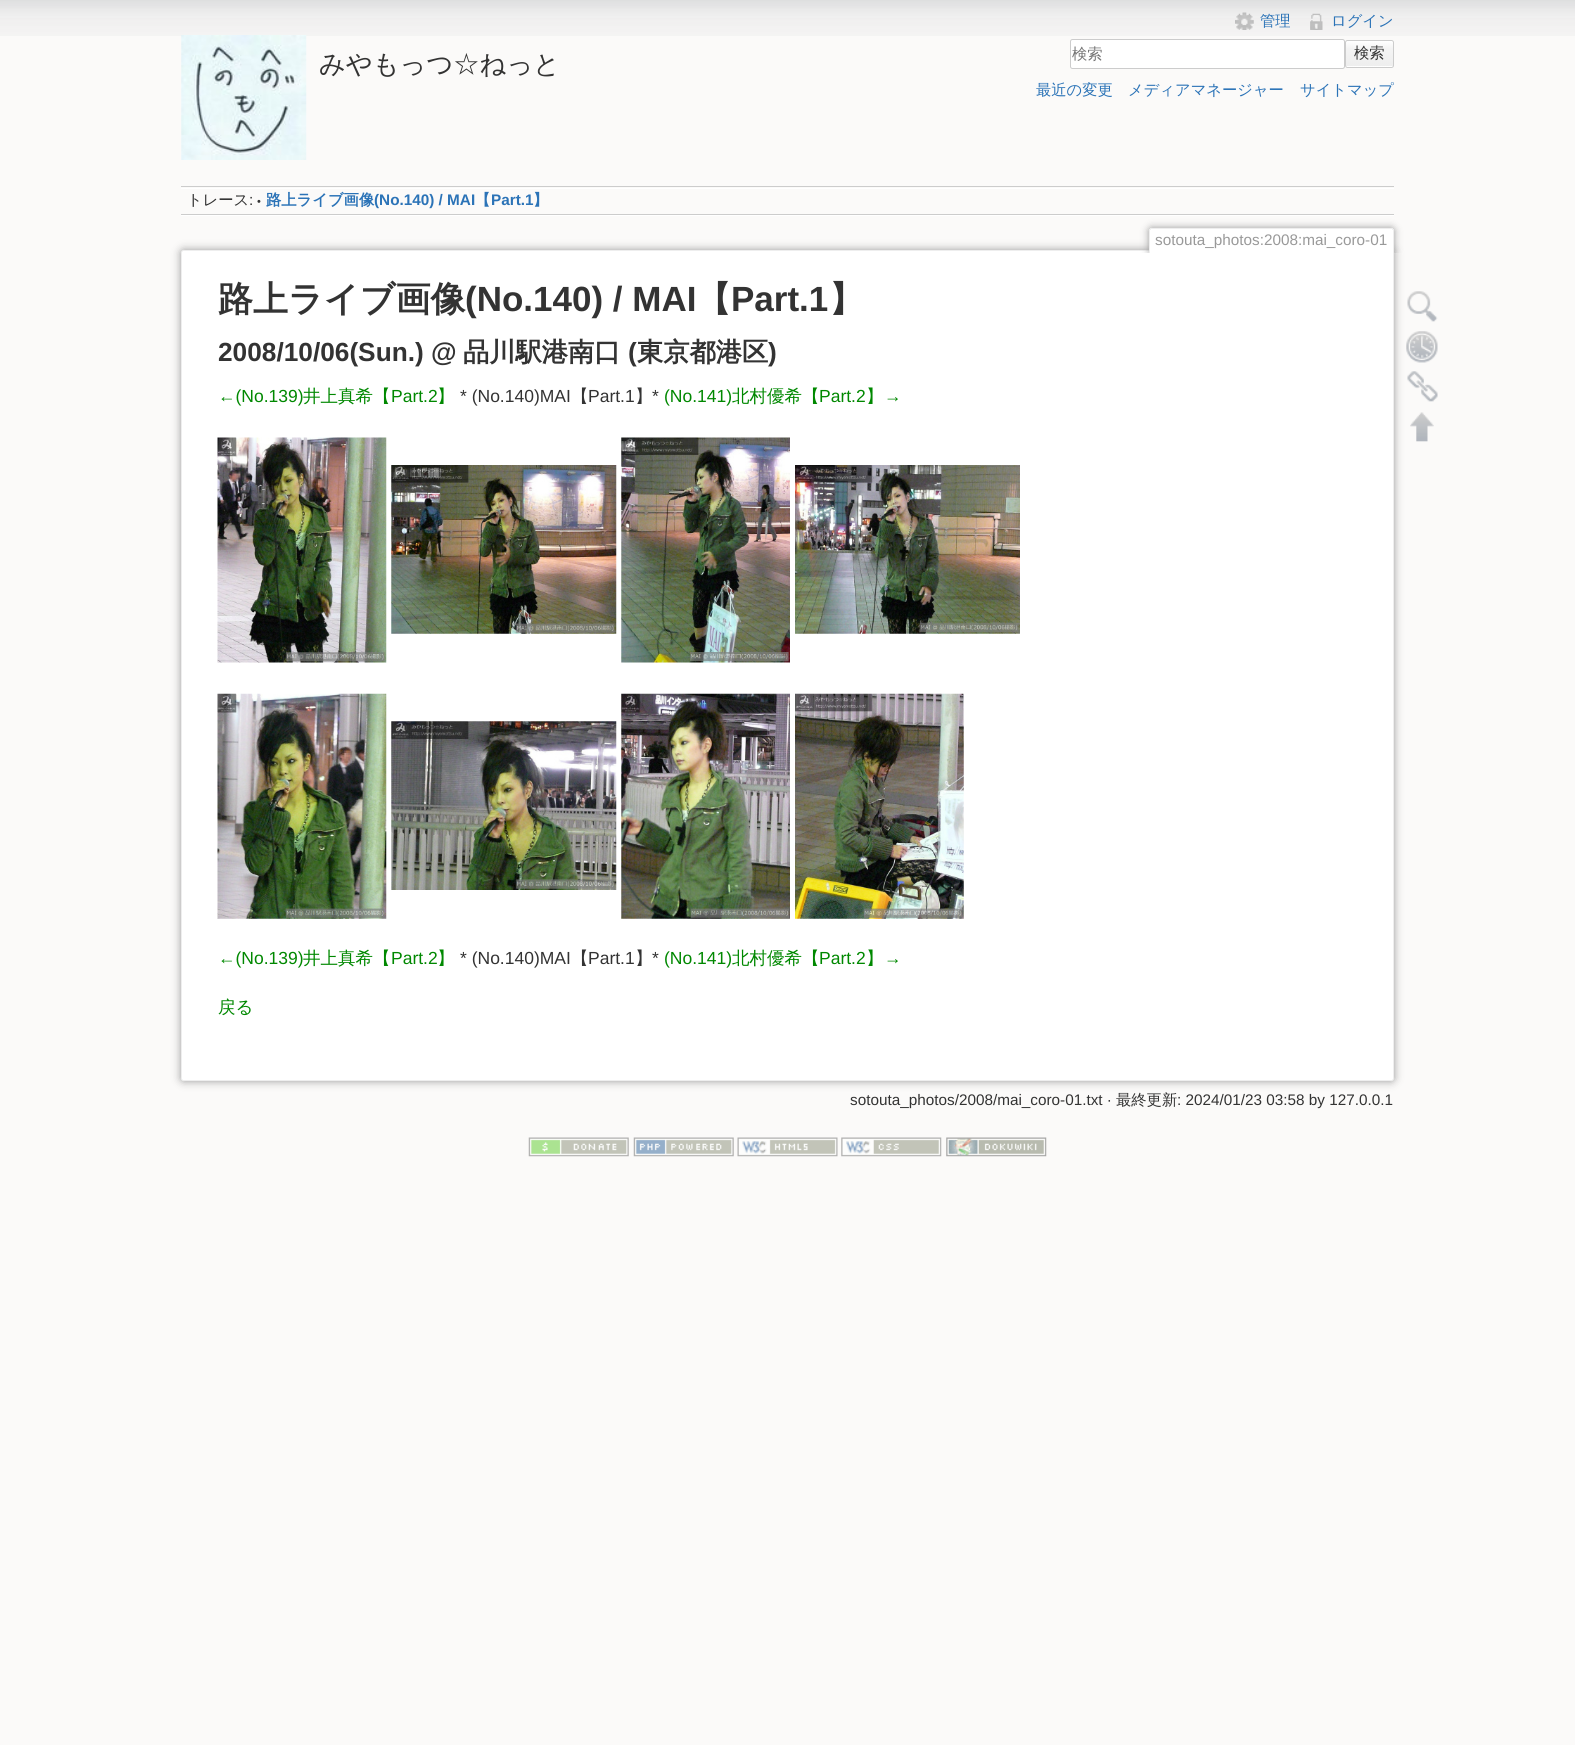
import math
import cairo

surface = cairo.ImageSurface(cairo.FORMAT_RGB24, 1575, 1745)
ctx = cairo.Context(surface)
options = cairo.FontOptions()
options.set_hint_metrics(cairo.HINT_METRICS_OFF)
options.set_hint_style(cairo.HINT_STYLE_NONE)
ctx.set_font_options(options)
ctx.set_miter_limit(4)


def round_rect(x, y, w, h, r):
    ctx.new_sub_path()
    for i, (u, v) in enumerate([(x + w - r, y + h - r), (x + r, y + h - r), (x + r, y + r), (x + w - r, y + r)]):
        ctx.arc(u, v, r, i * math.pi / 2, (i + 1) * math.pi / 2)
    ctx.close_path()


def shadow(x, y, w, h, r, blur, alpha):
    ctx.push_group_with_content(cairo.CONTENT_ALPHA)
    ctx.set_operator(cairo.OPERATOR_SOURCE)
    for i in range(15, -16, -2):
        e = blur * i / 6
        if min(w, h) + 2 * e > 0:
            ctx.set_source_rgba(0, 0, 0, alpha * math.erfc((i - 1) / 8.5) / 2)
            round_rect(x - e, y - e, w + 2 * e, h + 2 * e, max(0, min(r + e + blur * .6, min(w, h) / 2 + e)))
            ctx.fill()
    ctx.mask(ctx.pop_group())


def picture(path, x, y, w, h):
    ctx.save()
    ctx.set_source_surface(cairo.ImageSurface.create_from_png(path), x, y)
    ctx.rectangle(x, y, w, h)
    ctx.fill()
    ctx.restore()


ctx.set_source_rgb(0.984, 0.98, 0.976)
ctx.paint()
picture("img1.png", 0, 0, 1575, 36)
picture("img2.png", 181, 35, 126, 125)
ctx.select_font_face("WenQuanYi Zen Hei Medium")
ctx.set_font_size(26.25)
ctx.set_source_rgb(0.2, 0.2, 0.2)
ctx.move_to(319, 73)
ctx.show_text("みやもっつ☆ねっと")
picture("img3.png", 1235, 12, 19, 18)
ctx.set_font_size(15.3)
ctx.set_source_rgb(0.169, 0.451, 0.718)
ctx.move_to(1260, 26)
ctx.show_text("管理")
picture("img4.png", 1310, 13, 13, 17)
ctx.move_to(1331, 26)
ctx.show_text("ログイン")
ctx.set_source_rgb(1, 1, 1)
round_rect(1070.5, 39.5, 274, 29, 2)
ctx.fill_preserve()
ctx.set_source_rgb(0.8, 0.8, 0.8)
ctx.set_line_width(1)
ctx.stroke()
ctx.set_source_rgb(0.459, 0.459, 0.459)
ctx.move_to(1072, 59)
ctx.show_text("検索")
picture("img5.png", 1345, 41, 49, 27)
round_rect(1345.5, 40.5, 48, 27, 2)
ctx.set_source_rgb(0.8, 0.8, 0.8)
ctx.stroke()
ctx.set_source_rgb(0.2, 0.2, 0.2)
ctx.move_to(1354, 58)
ctx.show_text("検索")
ctx.set_source_rgb(0.169, 0.451, 0.718)
ctx.move_to(1036, 95)
ctx.show_text("最近の変更")
ctx.move_to(1128, 95)
ctx.show_text("メディアマネージャー")
ctx.move_to(1300, 95)
ctx.show_text("サイトマップ")
ctx.set_source_rgb(0.8, 0.8, 0.8)
ctx.rectangle(181, 186, 1213, 1)
ctx.fill()
ctx.set_source_rgb(1, 1, 1)
ctx.rectangle(181, 215, 1213, 1)
ctx.fill()
ctx.rectangle(181, 188, 1213, 1)
ctx.fill()
ctx.set_source_rgb(0.8, 0.8, 0.8)
ctx.rectangle(181, 214, 1213, 1)
ctx.fill()
ctx.set_source_rgb(0.2, 0.2, 0.2)
ctx.move_to(187, 205)
ctx.show_text("トレース")
ctx.select_font_face("Liberation Sans")
ctx.move_to(249, 205)
ctx.show_text(":")
ctx.set_font_size(11)
ctx.move_to(257, 205)
ctx.show_text("•")
ctx.select_font_face("WenQuanYi Zen Hei", cairo.FONT_SLANT_NORMAL, cairo.FONT_WEIGHT_BOLD)
ctx.set_font_size(15.3)
ctx.set_source_rgb(0.169, 0.451, 0.718)
ctx.move_to(266, 205)
ctx.show_text("路上ライブ画像")
ctx.select_font_face("Liberation Sans", cairo.FONT_SLANT_NORMAL, cairo.FONT_WEIGHT_BOLD)
ctx.move_to(374, 205)
ctx.show_text("(No.140) / MAI")
ctx.select_font_face("WenQuanYi Zen Hei", cairo.FONT_SLANT_NORMAL, cairo.FONT_WEIGHT_BOLD)
ctx.move_to(475, 205)
ctx.show_text("【")
ctx.select_font_face("Liberation Sans", cairo.FONT_SLANT_NORMAL, cairo.FONT_WEIGHT_BOLD)
ctx.move_to(491, 205)
ctx.show_text("Part.1")
ctx.select_font_face("WenQuanYi Zen Hei", cairo.FONT_SLANT_NORMAL, cairo.FONT_WEIGHT_BOLD)
ctx.move_to(533, 205)
ctx.show_text("】")
ctx.set_source_rgb(0.6, 0.6, 0.6)
shadow(181, 250, 1213, 831, 2.5, 4.5, 1)
ctx.set_source_rgb(1, 1, 1)
round_rect(181.5, 250.5, 1212, 830, 2)
ctx.fill_preserve()
ctx.set_source_rgb(0.933, 0.933, 0.933)
ctx.stroke()
ctx.save()
ctx.rectangle(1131, 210, 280, 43)
ctx.clip()
ctx.set_source_rgb(0.6, 0.6, 0.6)
shadow(1149, 228, 245, 25, 2.5, 4, 1)
ctx.restore()
ctx.set_source_rgb(1, 1, 1)
ctx.new_path()
ctx.move_to(1151, 229)
ctx.line_to(1392, 229)
ctx.curve_to(1392.5, 229, 1393, 229.5, 1393, 230)
ctx.line_to(1393, 253)
ctx.line_to(1150, 253)
ctx.line_to(1150, 230)
ctx.curve_to(1150, 229.5, 1150.5, 229, 1151, 229)
ctx.close_path()
ctx.fill()
ctx.set_source_rgb(0.933, 0.933, 0.933)
ctx.rectangle(1150, 228, 243, 1)
ctx.fill()
ctx.rectangle(1393, 229, 1, 24)
ctx.fill()
ctx.rectangle(1149, 229, 1, 24)
ctx.fill()
ctx.select_font_face("Liberation Sans")
ctx.set_source_rgb(0.6, 0.6, 0.6)
ctx.move_to(1155, 245)
ctx.show_text("sotouta_photos:2008:mai_coro-01")
ctx.select_font_face("WenQuanYi Zen Hei", cairo.FONT_SLANT_NORMAL, cairo.FONT_WEIGHT_BOLD)
ctx.set_font_size(35)
ctx.set_source_rgb(0.2, 0.2, 0.2)
ctx.move_to(218, 311)
ctx.show_text("路上ライブ画像")
ctx.select_font_face("Liberation Sans", cairo.FONT_SLANT_NORMAL, cairo.FONT_WEIGHT_BOLD)
ctx.move_to(465, 311)
ctx.show_text("(No.140) / MAI")
ctx.select_font_face("WenQuanYi Zen Hei", cairo.FONT_SLANT_NORMAL, cairo.FONT_WEIGHT_BOLD)
ctx.move_to(696, 311)
ctx.show_text("【")
ctx.select_font_face("Liberation Sans", cairo.FONT_SLANT_NORMAL, cairo.FONT_WEIGHT_BOLD)
ctx.move_to(731, 311)
ctx.show_text("Part.1")
ctx.select_font_face("WenQuanYi Zen Hei", cairo.FONT_SLANT_NORMAL, cairo.FONT_WEIGHT_BOLD)
ctx.move_to(829, 311)
ctx.show_text("】")
ctx.select_font_face("Liberation Sans", cairo.FONT_SLANT_NORMAL, cairo.FONT_WEIGHT_BOLD)
ctx.set_font_size(26.25)
ctx.move_to(218, 361)
ctx.show_text("2008/10/06(Sun.) @")
ctx.select_font_face("WenQuanYi Zen Hei", cairo.FONT_SLANT_NORMAL, cairo.FONT_WEIGHT_BOLD)
ctx.move_to(463, 361)
ctx.show_text("品川駅港南口")
ctx.select_font_face("Liberation Sans", cairo.FONT_SLANT_NORMAL, cairo.FONT_WEIGHT_BOLD)
ctx.move_to(628, 361)
ctx.show_text("(")
ctx.select_font_face("WenQuanYi Zen Hei", cairo.FONT_SLANT_NORMAL, cairo.FONT_WEIGHT_BOLD)
ctx.move_to(637, 361)
ctx.show_text("東京都港区")
ctx.select_font_face("Liberation Sans", cairo.FONT_SLANT_NORMAL, cairo.FONT_WEIGHT_BOLD)
ctx.move_to(768, 361)
ctx.show_text(")")
ctx.select_font_face("Liberation Sans")
ctx.set_font_size(17.5)
ctx.set_source_rgb(0, 0.533, 0)
ctx.move_to(218, 402)
ctx.show_text("←(No.139)")
ctx.select_font_face("WenQuanYi Zen Hei Medium")
ctx.move_to(303, 402)
ctx.show_text("井上真希【")
ctx.select_font_face("Liberation Sans")
ctx.move_to(391, 402)
ctx.show_text("Part.2")
ctx.select_font_face("WenQuanYi Zen Hei Medium")
ctx.move_to(437, 402)
ctx.show_text("】")
ctx.select_font_face("Liberation Sans")
ctx.set_source_rgb(0.2, 0.2, 0.2)
ctx.move_to(460, 402)
ctx.show_text("* (No.140)MAI")
ctx.select_font_face("WenQuanYi Zen Hei Medium")
ctx.move_to(571, 402)
ctx.show_text("【")
ctx.select_font_face("Liberation Sans")
ctx.move_to(588, 402)
ctx.show_text("Part.1")
ctx.select_font_face("WenQuanYi Zen Hei Medium")
ctx.move_to(635, 402)
ctx.show_text("】")
ctx.select_font_face("Liberation Sans")
ctx.move_to(652, 402)
ctx.show_text("*")
ctx.set_source_rgb(0, 0.533, 0)
ctx.move_to(664, 402)
ctx.show_text("(No.141)")
ctx.select_font_face("WenQuanYi Zen Hei Medium")
ctx.move_to(732, 402)
ctx.show_text("北村優希【")
ctx.select_font_face("Liberation Sans")
ctx.move_to(819, 402)
ctx.show_text("Part.2")
ctx.select_font_face("WenQuanYi Zen Hei Medium")
ctx.move_to(866, 402)
ctx.show_text("】")
ctx.select_font_face("Liberation Sans")
ctx.move_to(884, 402)
ctx.show_text("→")
picture("img6.png", 217, 437, 170, 226)
picture("img7.png", 391, 465, 226, 169)
picture("img8.png", 621, 437, 169, 226)
picture("img9.png", 795, 465, 225, 169)
picture("img10.png", 217, 693, 170, 226)
picture("img11.png", 391, 721, 226, 169)
picture("img12.png", 621, 693, 169, 226)
picture("img13.png", 795, 693, 169, 226)
ctx.move_to(218, 964)
ctx.show_text("←(No.139)")
ctx.select_font_face("WenQuanYi Zen Hei Medium")
ctx.move_to(303, 964)
ctx.show_text("井上真希【")
ctx.select_font_face("Liberation Sans")
ctx.move_to(391, 964)
ctx.show_text("Part.2")
ctx.select_font_face("WenQuanYi Zen Hei Medium")
ctx.move_to(437, 964)
ctx.show_text("】")
ctx.select_font_face("Liberation Sans")
ctx.set_source_rgb(0.2, 0.2, 0.2)
ctx.move_to(460, 964)
ctx.show_text("* (No.140)MAI")
ctx.select_font_face("WenQuanYi Zen Hei Medium")
ctx.move_to(571, 964)
ctx.show_text("【")
ctx.select_font_face("Liberation Sans")
ctx.move_to(588, 964)
ctx.show_text("Part.1")
ctx.select_font_face("WenQuanYi Zen Hei Medium")
ctx.move_to(635, 964)
ctx.show_text("】")
ctx.select_font_face("Liberation Sans")
ctx.move_to(652, 964)
ctx.show_text("*")
ctx.set_source_rgb(0, 0.533, 0)
ctx.move_to(664, 964)
ctx.show_text("(No.141)")
ctx.select_font_face("WenQuanYi Zen Hei Medium")
ctx.move_to(732, 964)
ctx.show_text("北村優希【")
ctx.select_font_face("Liberation Sans")
ctx.move_to(819, 964)
ctx.show_text("Part.2")
ctx.select_font_face("WenQuanYi Zen Hei Medium")
ctx.move_to(866, 964)
ctx.show_text("】")
ctx.select_font_face("Liberation Sans")
ctx.move_to(884, 964)
ctx.show_text("→")
ctx.select_font_face("WenQuanYi Zen Hei Medium")
ctx.move_to(218, 1013)
ctx.show_text("戻る")
ctx.select_font_face("Liberation Sans")
ctx.set_font_size(15.3)
ctx.set_source_rgb(0.2, 0.2, 0.2)
ctx.move_to(850, 1105)
ctx.show_text("sotouta_photos/2008/mai_coro-01.txt ·")
ctx.select_font_face("WenQuanYi Zen Hei Medium")
ctx.move_to(1116, 1105)
ctx.show_text("最終更新")
ctx.select_font_face("Liberation Sans")
ctx.move_to(1177, 1105)
ctx.show_text(": 2024/01/23 03:58 by 127.0.0.1")
picture("img14.png", 1407, 291, 31, 31)
picture("img15.png", 1406, 331, 32, 32)
picture("img16.png", 1407, 371, 31, 31)
picture("img17.png", 1410, 412, 24, 30)
picture("img18.png", 528, 1137, 101, 20)
picture("img19.png", 633, 1137, 101, 20)
picture("img20.png", 737, 1137, 101, 20)
picture("img21.png", 841, 1137, 101, 20)
picture("img22.png", 946, 1137, 101, 20)
surface.write_to_png("page.png")
